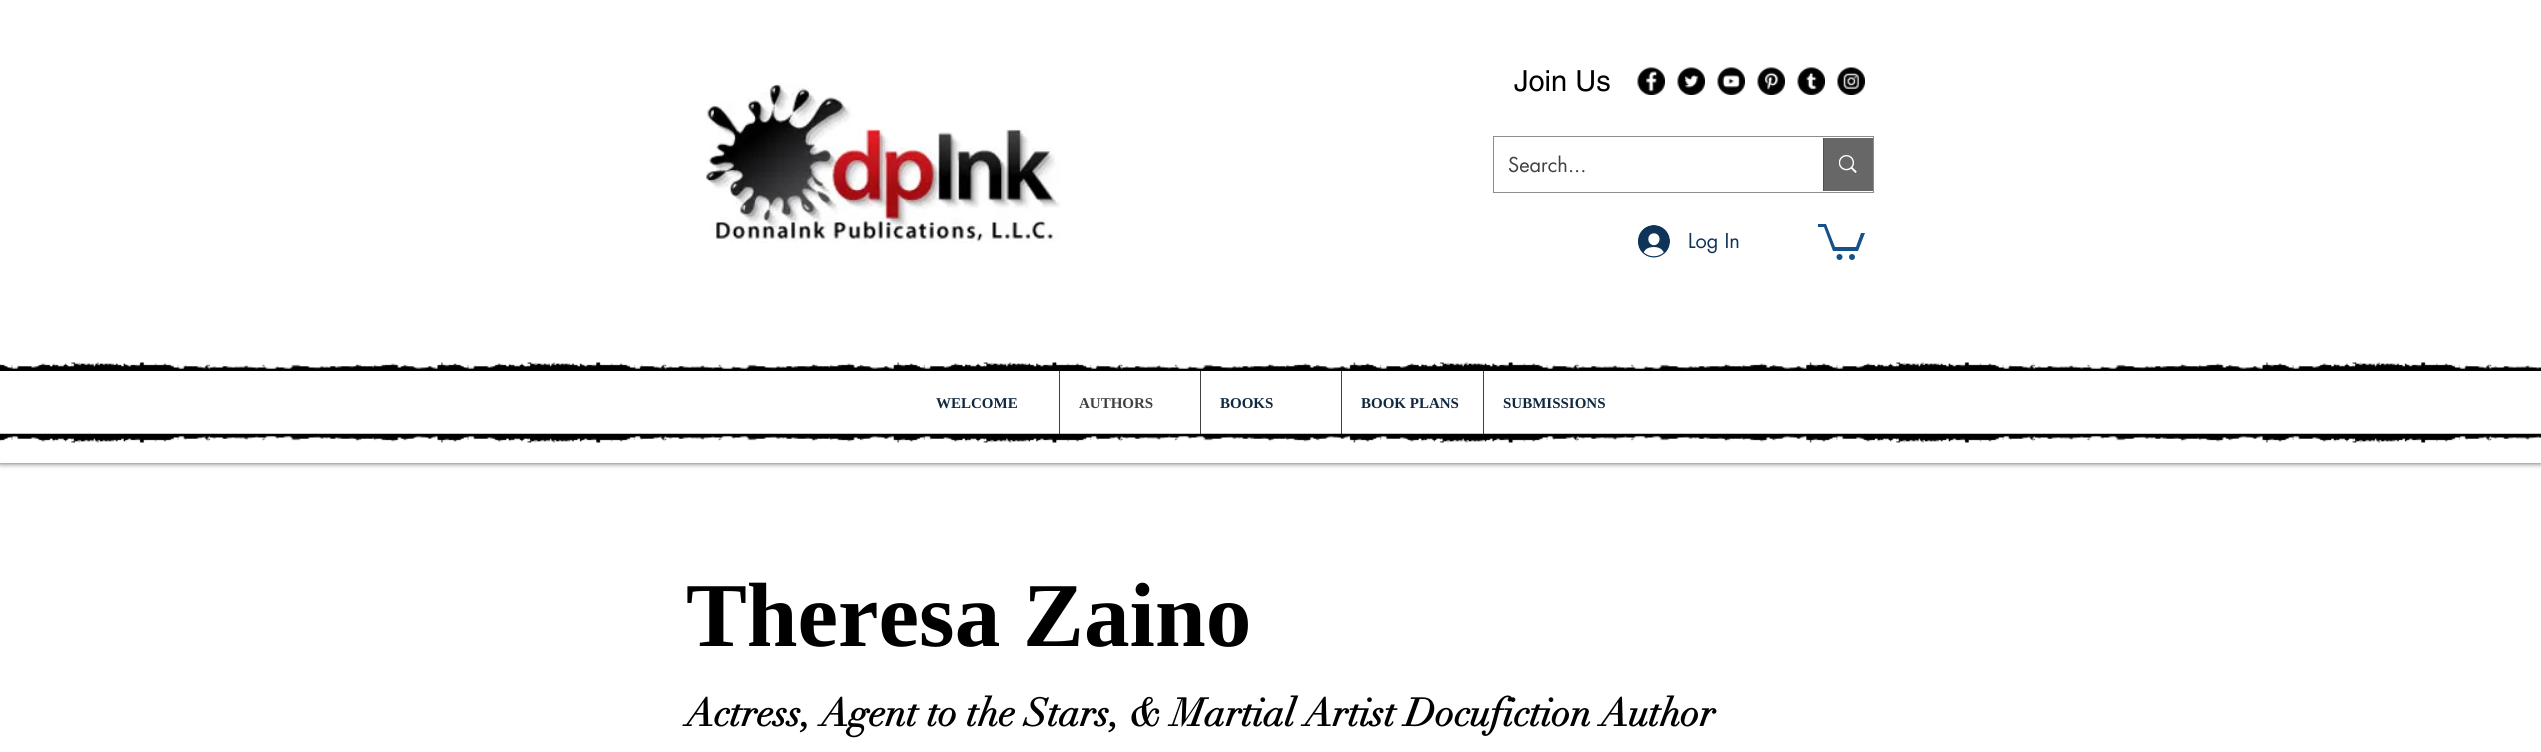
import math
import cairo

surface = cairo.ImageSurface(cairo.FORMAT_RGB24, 2541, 752)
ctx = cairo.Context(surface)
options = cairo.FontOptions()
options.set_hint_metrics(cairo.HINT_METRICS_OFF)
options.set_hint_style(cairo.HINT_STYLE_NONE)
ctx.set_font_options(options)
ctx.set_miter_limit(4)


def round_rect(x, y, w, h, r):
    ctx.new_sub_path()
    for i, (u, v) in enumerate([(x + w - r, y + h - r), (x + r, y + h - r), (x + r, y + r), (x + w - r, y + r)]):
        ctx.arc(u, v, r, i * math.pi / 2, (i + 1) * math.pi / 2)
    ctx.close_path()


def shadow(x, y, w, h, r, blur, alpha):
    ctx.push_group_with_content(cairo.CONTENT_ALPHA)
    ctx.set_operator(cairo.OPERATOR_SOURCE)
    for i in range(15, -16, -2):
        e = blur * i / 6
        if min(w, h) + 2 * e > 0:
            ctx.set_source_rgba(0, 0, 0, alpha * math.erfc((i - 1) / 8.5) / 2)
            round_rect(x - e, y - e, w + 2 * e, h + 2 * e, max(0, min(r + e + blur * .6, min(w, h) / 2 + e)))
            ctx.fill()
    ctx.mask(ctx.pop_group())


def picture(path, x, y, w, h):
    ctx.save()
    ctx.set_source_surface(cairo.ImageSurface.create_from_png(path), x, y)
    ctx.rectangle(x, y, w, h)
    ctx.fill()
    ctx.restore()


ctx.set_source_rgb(1, 1, 1)
ctx.paint()
ctx.set_source_rgb(0, 0, 0)
shadow(0, 0, 2541, 463, 0, 3, 0.7)
ctx.set_source_rgb(1, 1, 1)
ctx.rectangle(0, 0, 2541, 463)
ctx.fill()
picture("img1.png", 705, 83, 356, 160)
ctx.select_font_face("helvetica")
ctx.set_font_size(29)
ctx.set_source_rgb(0, 0, 0)
ctx.move_to(1514, 91)
ctx.show_text("Join Us")
picture("img2.png", 1637, 67, 28, 28)
picture("img3.png", 1677, 67, 28, 28)
picture("img4.png", 1717, 67, 28, 28)
picture("img5.png", 1757, 67, 28, 28)
picture("img6.png", 1797, 67, 28, 28)
picture("img7.png", 1837, 67, 28, 28)
ctx.rectangle(1493.5, 136.5, 380, 56)
ctx.set_source_rgb(0.553, 0.553, 0.553)
ctx.set_line_width(1)
ctx.stroke()
ctx.select_font_face("futura")
ctx.set_font_size(20)
ctx.set_source_rgb(0.255, 0.255, 0.255)
ctx.move_to(1508, 172)
ctx.show_text("Search...")
ctx.set_source_rgb(0.404, 0.404, 0.404)
ctx.rectangle(1824, 138, 49, 53)
ctx.fill()
ctx.set_source_rgb(0.314, 0.314, 0.314)
ctx.rectangle(1823, 138, 1, 53)
ctx.fill()
picture("img8.png", 1839, 155, 18, 18)
picture("img9.png", 1638, 225, 32, 33)
ctx.set_source_rgb(0.055, 0.204, 0.353)
ctx.move_to(1688, 248)
ctx.show_text("Log In")
ctx.set_source_rgb(0.086, 0.318, 0.549)
ctx.new_path()
ctx.move_to(1865, 233)
ctx.line_to(1858, 251)
ctx.line_to(1833, 251)
ctx.line_to(1824, 227)
ctx.line_to(1818, 227)
ctx.line_to(1818, 224)
ctx.line_to(1826, 224)
ctx.line_to(1835, 247)
ctx.line_to(1856, 247)
ctx.line_to(1861, 233)
ctx.fill()
ctx.arc(1852, 257, 3, 0, 2 * math.pi)
ctx.fill()
ctx.arc(1839.5, 257, 3, 0, 2 * math.pi)
ctx.fill()
picture("img10.png", 0, 362, 2541, 9)
ctx.select_font_face("Liberation Serif", cairo.FONT_SLANT_NORMAL, cairo.FONT_WEIGHT_BOLD)
ctx.set_font_size(15)
ctx.set_source_rgb(0.059, 0.157, 0.251)
ctx.move_to(936, 408)
ctx.show_text("WELCOME")
ctx.set_source_rgb(0.255, 0.255, 0.255)
ctx.rectangle(1059, 371, 1, 63)
ctx.fill()
ctx.move_to(1079, 408)
ctx.show_text("AUTHORS")
ctx.rectangle(1200, 371, 1, 63)
ctx.fill()
ctx.set_source_rgb(0.059, 0.157, 0.251)
ctx.move_to(1220, 408)
ctx.show_text("BOOKS")
ctx.set_source_rgb(0.255, 0.255, 0.255)
ctx.rectangle(1341, 371, 1, 63)
ctx.fill()
ctx.set_source_rgb(0.059, 0.157, 0.251)
ctx.move_to(1361, 408)
ctx.show_text("BOOK PLANS")
ctx.set_source_rgb(0.255, 0.255, 0.255)
ctx.rectangle(1483, 371, 1, 63)
ctx.fill()
ctx.set_source_rgb(0.059, 0.157, 0.251)
ctx.move_to(1503, 408)
ctx.show_text("SUBMISSIONS")
picture("img11.png", 0, 433, 2541, 10)
ctx.set_font_size(91.25)
ctx.set_source_rgb(0, 0, 0)
ctx.move_to(686, 646)
ctx.show_text("Theresa Zaino")
ctx.select_font_face("didot", cairo.FONT_SLANT_NORMAL, cairo.FONT_WEIGHT_BOLD)
ctx.set_font_size(38.75)
ctx.move_to(686, 726)
ctx.show_text("Actress, Agent to the Stars, & Martial Artist Docufiction Author")
surface.write_to_png("page.png")
